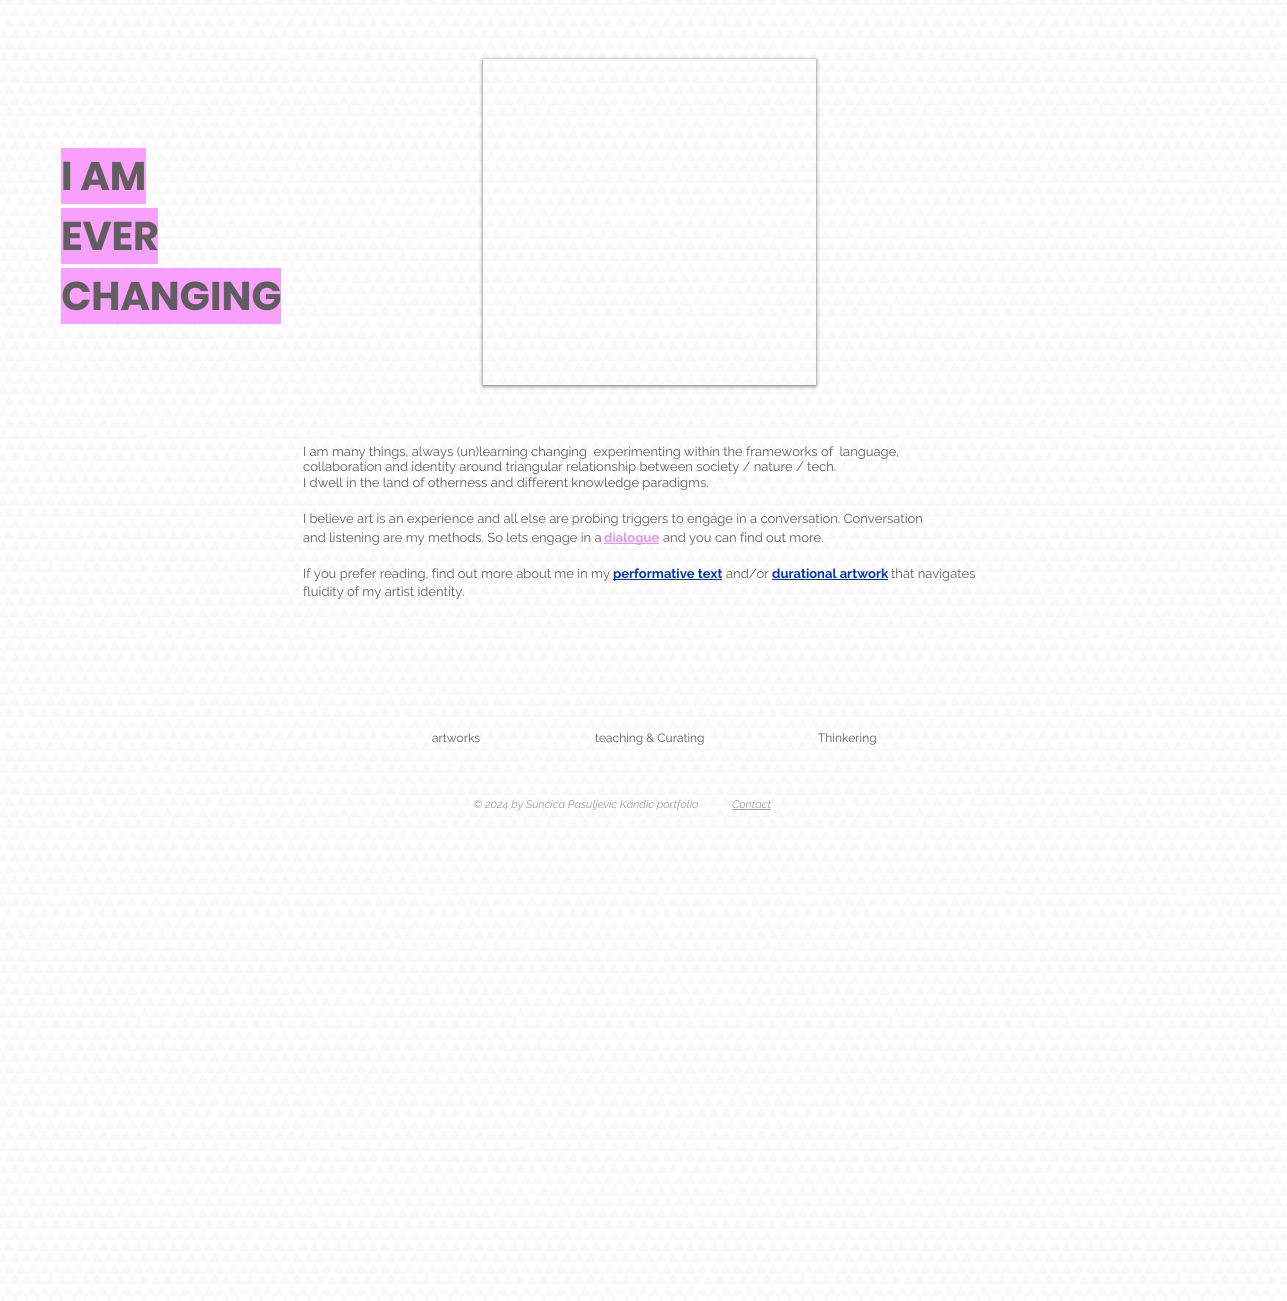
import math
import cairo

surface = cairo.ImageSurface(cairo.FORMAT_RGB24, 1287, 1301)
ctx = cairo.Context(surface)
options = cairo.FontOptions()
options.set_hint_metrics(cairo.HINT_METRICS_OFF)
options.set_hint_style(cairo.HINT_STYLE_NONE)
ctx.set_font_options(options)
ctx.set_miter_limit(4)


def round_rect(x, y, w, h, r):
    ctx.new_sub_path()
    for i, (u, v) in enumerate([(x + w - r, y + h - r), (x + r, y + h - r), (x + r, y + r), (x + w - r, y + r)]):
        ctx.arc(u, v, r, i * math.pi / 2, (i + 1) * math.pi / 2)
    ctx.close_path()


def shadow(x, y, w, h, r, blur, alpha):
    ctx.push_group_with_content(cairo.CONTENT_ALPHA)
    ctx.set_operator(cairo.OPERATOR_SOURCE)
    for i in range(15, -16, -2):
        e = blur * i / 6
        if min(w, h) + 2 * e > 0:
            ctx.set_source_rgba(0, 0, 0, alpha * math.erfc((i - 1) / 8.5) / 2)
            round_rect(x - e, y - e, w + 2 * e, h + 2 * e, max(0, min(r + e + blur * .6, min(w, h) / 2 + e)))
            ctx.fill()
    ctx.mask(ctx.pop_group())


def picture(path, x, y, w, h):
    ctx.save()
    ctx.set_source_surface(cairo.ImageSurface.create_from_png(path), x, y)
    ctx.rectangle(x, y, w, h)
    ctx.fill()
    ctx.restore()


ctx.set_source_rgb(1, 1, 1)
ctx.paint()
picture("img1.png", 0, 0, 1287, 1301)
ctx.set_source_rgb(0.976, 0.624, 0.988)
ctx.rectangle(61, 148, 85, 56)
ctx.fill()
ctx.select_font_face("Poppins", cairo.FONT_SLANT_NORMAL, cairo.FONT_WEIGHT_BOLD)
ctx.set_font_size(40)
ctx.set_source_rgb(0.376, 0.369, 0.369)
ctx.move_to(61, 190)
ctx.show_text("I AM")
ctx.set_source_rgb(0.976, 0.624, 0.988)
ctx.rectangle(61, 208, 97, 56)
ctx.fill()
ctx.set_source_rgb(0.376, 0.369, 0.369)
ctx.move_to(61, 250)
ctx.show_text("EVER")
ctx.set_source_rgb(0.976, 0.624, 0.988)
ctx.rectangle(61, 268, 220, 56)
ctx.fill()
ctx.set_source_rgb(0.376, 0.369, 0.369)
ctx.move_to(61, 310)
ctx.show_text("CHANGING")
ctx.save()
ctx.set_fill_rule(cairo.FILL_RULE_EVEN_ODD)
ctx.new_path()
ctx.move_to(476, 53)
ctx.line_to(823, 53)
ctx.line_to(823, 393)
ctx.line_to(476, 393)
ctx.close_path()
ctx.move_to(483, 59)
ctx.line_to(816, 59)
ctx.line_to(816, 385)
ctx.line_to(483, 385)
ctx.close_path()
ctx.clip()
ctx.set_source_rgb(0, 0, 0)
shadow(483, 60, 333, 326, 0, 2, 0.6)
ctx.restore()
ctx.select_font_face("Raleway")
ctx.set_font_size(13)
ctx.move_to(303, 456)
ctx.show_text("I am many things, always (un)learning changing  experimenting within the frameworks of  language,")
ctx.move_to(303, 471)
ctx.show_text("collaboration and identity around triangular relationship between society / nature / tech.")
ctx.move_to(303, 487)
ctx.show_text("I dwell in the land of otherness and different knowledge paradigms.")
ctx.move_to(303, 523)
ctx.show_text("I believe art is an experience and all else are probing triggers to engage in a conversation. Conversation")
ctx.move_to(303, 542)
ctx.show_text("and listening are my methods. So lets engage in a")
ctx.set_source_rgb(0.898, 0.569, 0.98)
ctx.rectangle(604, 543, 55, 1)
ctx.fill()
ctx.select_font_face("Raleway", cairo.FONT_SLANT_NORMAL, cairo.FONT_WEIGHT_BOLD)
ctx.move_to(604, 542)
ctx.show_text("dialogue")
ctx.select_font_face("Raleway")
ctx.set_source_rgb(0.376, 0.369, 0.369)
ctx.move_to(663, 542)
ctx.show_text("and you can find out more.")
ctx.move_to(303, 578)
ctx.show_text("If you prefer reading, find out more about me in my")
ctx.set_source_rgb(0, 0.204, 0.722)
ctx.rectangle(613, 579, 109, 1)
ctx.fill()
ctx.select_font_face("Raleway", cairo.FONT_SLANT_NORMAL, cairo.FONT_WEIGHT_BOLD)
ctx.move_to(613, 578)
ctx.show_text("performative text")
ctx.select_font_face("Raleway")
ctx.set_source_rgb(0.376, 0.369, 0.369)
ctx.move_to(726, 578)
ctx.show_text("and/or")
ctx.select_font_face("Raleway", cairo.FONT_SLANT_NORMAL, cairo.FONT_WEIGHT_BOLD)
ctx.set_source_rgb(0, 0.204, 0.722)
ctx.move_to(772, 578)
ctx.show_text("durational artwork")
ctx.rectangle(772, 579, 116, 1)
ctx.fill()
ctx.select_font_face("Raleway")
ctx.set_source_rgb(0.376, 0.369, 0.369)
ctx.move_to(891, 578)
ctx.show_text("that navigates")
ctx.move_to(303, 596)
ctx.show_text("fluidity of my artist identity.")
ctx.set_font_size(12)
ctx.move_to(432, 742)
ctx.show_text("artworks")
ctx.move_to(595, 742)
ctx.show_text("teaching & Curating")
ctx.move_to(818, 742)
ctx.show_text("Thinkering")
ctx.select_font_face("Raleway", cairo.FONT_SLANT_ITALIC)
ctx.set_font_size(11)
ctx.set_source_rgb(0.627, 0.627, 0.624)
ctx.move_to(473, 808)
ctx.show_text("© 2024 by Suncica Pasuljevic Kandic portfolio")
ctx.move_to(732, 808)
ctx.show_text("Contact")
ctx.rectangle(732, 809, 39, 1)
ctx.fill()
surface.write_to_png("page.png")
